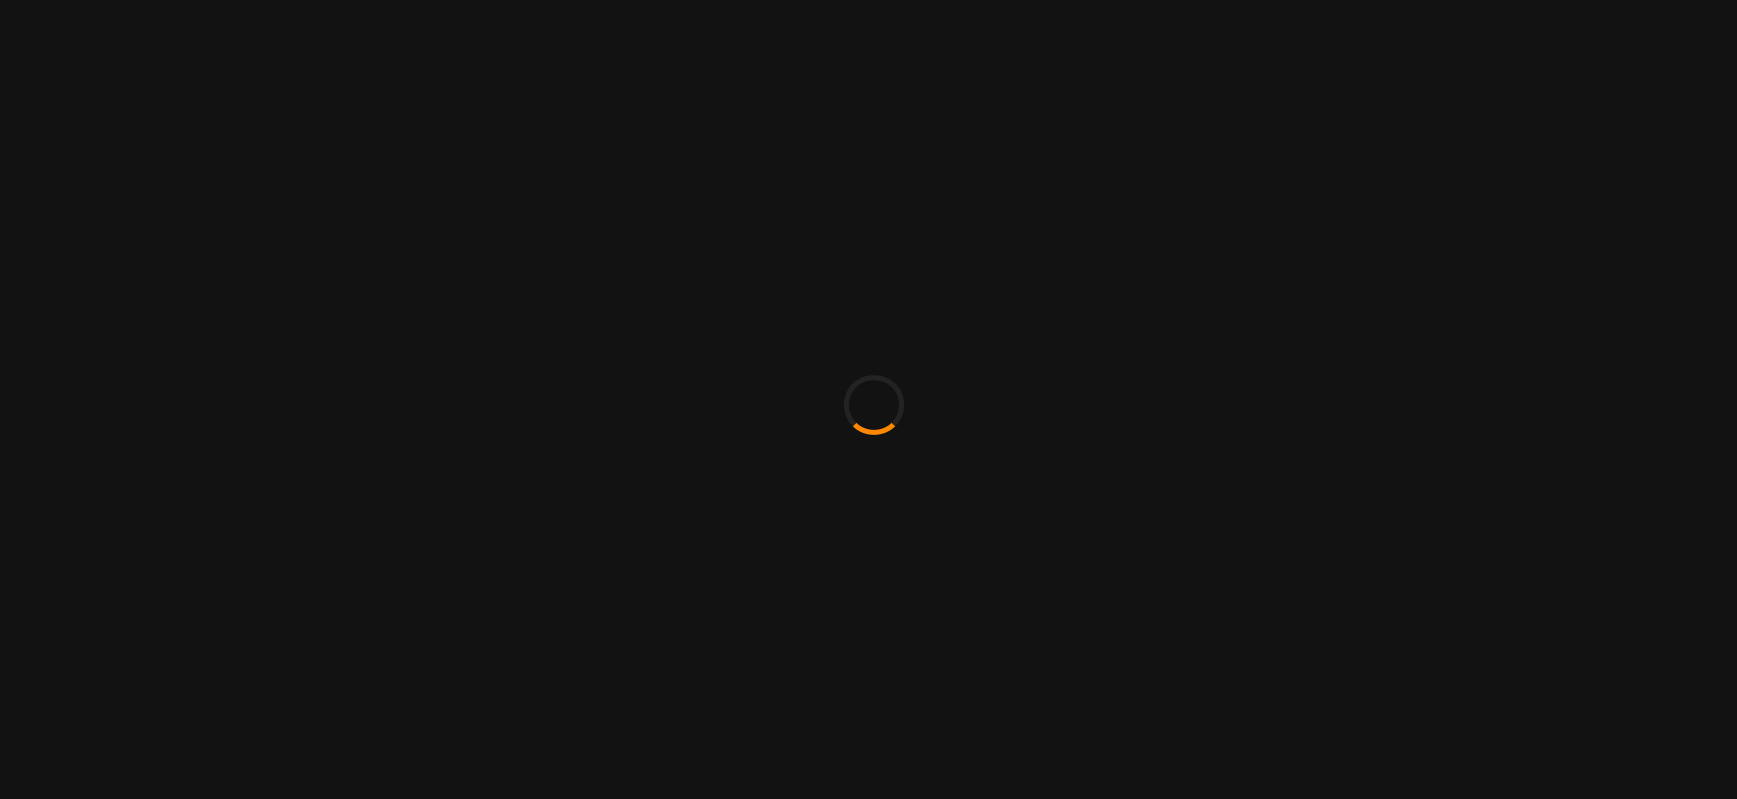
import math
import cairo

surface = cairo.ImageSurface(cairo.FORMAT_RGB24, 1737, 799)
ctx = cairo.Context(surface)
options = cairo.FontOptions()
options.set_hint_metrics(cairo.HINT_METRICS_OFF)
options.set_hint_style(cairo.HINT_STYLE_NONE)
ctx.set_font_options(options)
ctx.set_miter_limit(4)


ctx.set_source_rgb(0.071, 0.071, 0.071)
ctx.paint()
ctx.new_path()
ctx.move_to(893.5, 424.5)
ctx.curve_to(883, 435, 865, 435, 854.5, 424.5)
ctx.set_source_rgb(1, 0.533, 0)
ctx.set_line_width(5)
ctx.stroke()
ctx.new_path()
ctx.move_to(854.5, 424.5)
ctx.curve_to(848, 418, 845, 408.5, 847, 399.5)
ctx.curve_to(853.5, 367.5, 901.5, 372, 901.5, 405)
ctx.curve_to(901.5, 412, 898.5, 419.5, 893.5, 424.5)
ctx.set_source_rgb(0.137, 0.137, 0.137)
ctx.stroke()
surface.write_to_png("page.png")
